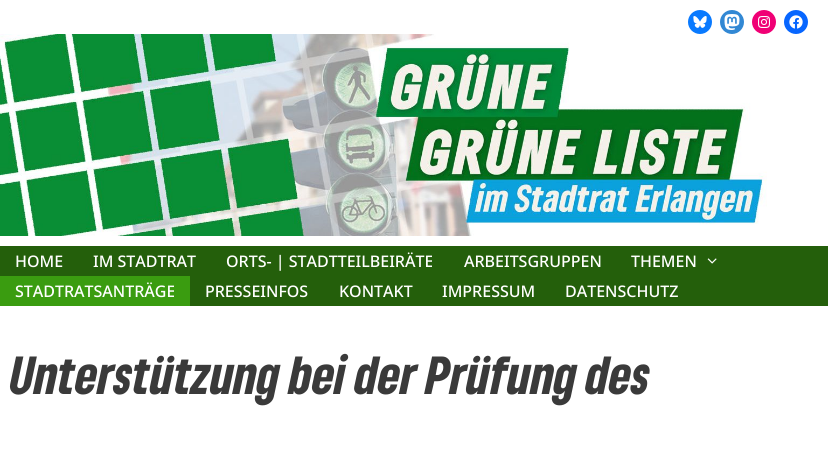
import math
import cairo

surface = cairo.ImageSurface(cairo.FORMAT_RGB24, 828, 470)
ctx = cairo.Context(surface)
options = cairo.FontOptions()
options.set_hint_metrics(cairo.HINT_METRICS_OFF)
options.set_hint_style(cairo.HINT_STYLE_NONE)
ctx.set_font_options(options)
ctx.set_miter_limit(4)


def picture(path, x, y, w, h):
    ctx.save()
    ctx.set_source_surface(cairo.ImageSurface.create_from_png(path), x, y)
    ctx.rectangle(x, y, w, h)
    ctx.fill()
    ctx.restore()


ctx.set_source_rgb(1, 1, 1)
ctx.paint()
ctx.set_source_rgb(0.039, 0.478, 1)
ctx.arc(700, 22, 12, 0, 2 * math.pi)
ctx.fill()
picture("img1.png", 693, 16, 14, 12)
ctx.set_source_rgb(0.196, 0.533, 0.831)
ctx.arc(732, 22, 12, 0, 2 * math.pi)
ctx.fill()
picture("img2.png", 724, 14, 16, 16)
ctx.set_source_rgb(0.941, 0, 0.459)
ctx.arc(764, 22, 12, 0, 2 * math.pi)
ctx.fill()
picture("img3.png", 758, 16, 12, 12)
ctx.set_source_rgb(0.031, 0.4, 1)
ctx.arc(796, 22, 12, 0, 2 * math.pi)
ctx.fill()
picture("img4.png", 789, 15, 14, 14)
picture("img5.png", 0, 34, 767, 202)
ctx.set_source_rgb(0.141, 0.373, 0.043)
ctx.rectangle(0, 246, 828, 60)
ctx.fill()
ctx.select_font_face("Noto Sans Medium")
ctx.set_font_size(16)
ctx.set_source_rgb(1, 1, 1)
ctx.move_to(15, 267)
ctx.show_text("HOME")
ctx.move_to(93, 267)
ctx.show_text("IM STADTRAT")
ctx.move_to(226, 267)
ctx.show_text("ORTS- | STADTTEILBEIRÄTE")
ctx.move_to(464, 267)
ctx.show_text("ARBEITSGRUPPEN")
ctx.move_to(631, 267)
ctx.show_text("THEMEN")
picture("img6.png", 707, 258, 10, 6)
ctx.set_source_rgb(0.227, 0.612, 0.063)
ctx.rectangle(0, 276, 190, 30)
ctx.fill()
ctx.set_source_rgb(1, 1, 1)
ctx.move_to(15, 297)
ctx.show_text("STADTRATSANTRÄGE")
ctx.move_to(205, 297)
ctx.show_text("PRESSEINFOS")
ctx.move_to(339, 297)
ctx.show_text("KONTAKT")
ctx.move_to(442, 297)
ctx.show_text("IMPRESSUM")
ctx.move_to(565, 297)
ctx.show_text("DATENSCHUTZ")
ctx.select_font_face("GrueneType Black")
ctx.set_font_size(50)
ctx.set_source_rgb(0.227, 0.227, 0.227)
ctx.move_to(10, 394)
ctx.show_text("Unterstützung bei der Prüfung des")
surface.write_to_png("page.png")
